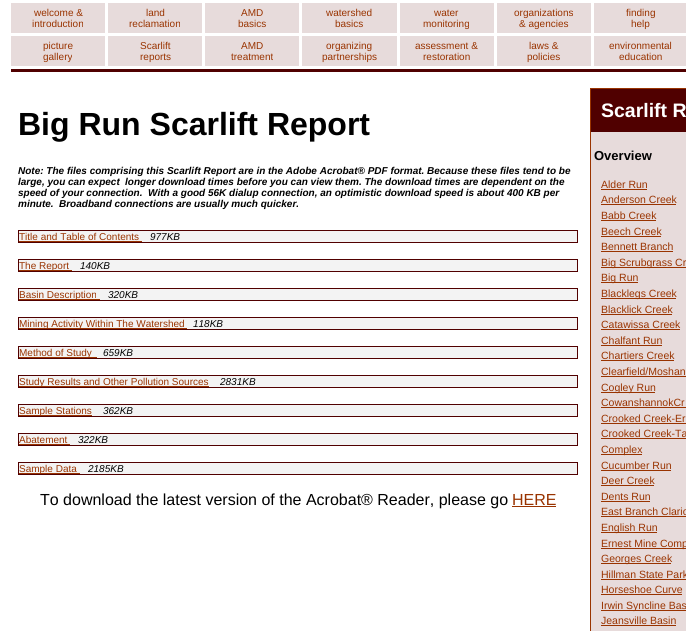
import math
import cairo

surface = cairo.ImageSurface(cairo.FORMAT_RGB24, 686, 631)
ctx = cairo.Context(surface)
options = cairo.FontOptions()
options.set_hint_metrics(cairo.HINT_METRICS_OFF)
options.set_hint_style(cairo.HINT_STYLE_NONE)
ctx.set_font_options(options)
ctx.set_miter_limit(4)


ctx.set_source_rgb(1, 1, 1)
ctx.paint()
ctx.set_source_rgb(0.906, 0.859, 0.859)
ctx.rectangle(11, 3, 94, 30)
ctx.fill()
ctx.select_font_face("Liberation Sans")
ctx.set_font_size(10)
ctx.set_source_rgb(0.6, 0.2, 0)
ctx.move_to(34, 16)
ctx.show_text("welcome &")
ctx.move_to(32, 27)
ctx.show_text("introduction")
ctx.set_source_rgb(0.906, 0.859, 0.859)
ctx.rectangle(108, 3, 94, 30)
ctx.fill()
ctx.set_source_rgb(0.6, 0.2, 0)
ctx.move_to(146, 16)
ctx.show_text("land")
ctx.move_to(129, 27)
ctx.show_text("reclamation")
ctx.set_source_rgb(0.906, 0.859, 0.859)
ctx.rectangle(205, 3, 94, 30)
ctx.fill()
ctx.set_source_rgb(0.6, 0.2, 0)
ctx.move_to(241, 16)
ctx.show_text("AMD")
ctx.move_to(238, 27)
ctx.show_text("basics")
ctx.set_source_rgb(0.906, 0.859, 0.859)
ctx.rectangle(302, 3, 95, 30)
ctx.fill()
ctx.set_source_rgb(0.6, 0.2, 0)
ctx.move_to(326, 16)
ctx.show_text("watershed")
ctx.move_to(335, 27)
ctx.show_text("basics")
ctx.set_source_rgb(0.906, 0.859, 0.859)
ctx.rectangle(400, 3, 94, 30)
ctx.fill()
ctx.set_source_rgb(0.6, 0.2, 0)
ctx.move_to(434, 16)
ctx.show_text("water")
ctx.move_to(423, 27)
ctx.show_text("monitoring")
ctx.set_source_rgb(0.906, 0.859, 0.859)
ctx.rectangle(497, 3, 94, 30)
ctx.fill()
ctx.set_source_rgb(0.6, 0.2, 0)
ctx.move_to(514, 16)
ctx.show_text("organizations")
ctx.move_to(519, 27)
ctx.show_text("& agencies")
ctx.set_source_rgb(0.906, 0.859, 0.859)
ctx.rectangle(594, 3, 92, 30)
ctx.fill()
ctx.set_source_rgb(0.6, 0.2, 0)
ctx.move_to(626, 16)
ctx.show_text("finding")
ctx.move_to(631, 27)
ctx.show_text("help")
ctx.set_source_rgb(0.906, 0.859, 0.859)
ctx.rectangle(11, 36, 94, 30)
ctx.fill()
ctx.set_source_rgb(0.6, 0.2, 0)
ctx.move_to(43, 49)
ctx.show_text("picture")
ctx.move_to(43, 60)
ctx.show_text("gallery")
ctx.set_source_rgb(0.906, 0.859, 0.859)
ctx.rectangle(108, 36, 94, 30)
ctx.fill()
ctx.set_source_rgb(0.6, 0.2, 0)
ctx.move_to(140, 49)
ctx.show_text("Scarlift")
ctx.move_to(140, 60)
ctx.show_text("reports")
ctx.set_source_rgb(0.906, 0.859, 0.859)
ctx.rectangle(205, 36, 94, 30)
ctx.fill()
ctx.set_source_rgb(0.6, 0.2, 0)
ctx.move_to(241, 49)
ctx.show_text("AMD")
ctx.move_to(231, 60)
ctx.show_text("treatment")
ctx.set_source_rgb(0.906, 0.859, 0.859)
ctx.rectangle(302, 36, 95, 30)
ctx.fill()
ctx.set_source_rgb(0.6, 0.2, 0)
ctx.move_to(326, 49)
ctx.show_text("organizing")
ctx.move_to(322, 60)
ctx.show_text("partnerships")
ctx.set_source_rgb(0.906, 0.859, 0.859)
ctx.rectangle(400, 36, 94, 30)
ctx.fill()
ctx.set_source_rgb(0.6, 0.2, 0)
ctx.move_to(415, 49)
ctx.show_text("assessment &")
ctx.move_to(423, 60)
ctx.show_text("restoration")
ctx.set_source_rgb(0.906, 0.859, 0.859)
ctx.rectangle(497, 36, 94, 30)
ctx.fill()
ctx.set_source_rgb(0.6, 0.2, 0)
ctx.move_to(529, 49)
ctx.show_text("laws &")
ctx.move_to(527, 60)
ctx.show_text("policies")
ctx.set_source_rgb(0.906, 0.859, 0.859)
ctx.rectangle(594, 36, 92, 30)
ctx.fill()
ctx.set_source_rgb(0.6, 0.2, 0)
ctx.move_to(609, 49)
ctx.show_text("environmental")
ctx.move_to(619, 60)
ctx.show_text("education")
ctx.set_source_rgb(0.314, 0, 0)
ctx.rectangle(11, 69, 675, 3)
ctx.fill()
ctx.select_font_face("Liberation Sans", cairo.FONT_SLANT_NORMAL, cairo.FONT_WEIGHT_BOLD)
ctx.set_font_size(32)
ctx.set_source_rgb(0, 0, 0)
ctx.move_to(18, 135)
ctx.show_text("Big Run Scarlift Report")
ctx.select_font_face("Liberation Sans", cairo.FONT_SLANT_ITALIC, cairo.FONT_WEIGHT_BOLD)
ctx.set_font_size(10)
ctx.move_to(18, 174)
ctx.show_text("Note: The files comprising this Scarlift Report are in the Adobe Acrobat® PDF format. Because these files tend to be")
ctx.move_to(18, 185)
ctx.show_text("large, you can expect")
ctx.move_to(125, 185)
ctx.show_text("longer download times before you can view them. The download times are dependent on the")
ctx.move_to(18, 196)
ctx.show_text("speed of your connection.  With a good 56K dialup connection, an optimistic download speed is about 400 KB per")
ctx.move_to(18, 207)
ctx.show_text("minute.")
ctx.move_to(59, 207)
ctx.show_text("Broadband connections are usually much quicker.")
ctx.set_source_rgb(0.953, 0.953, 0.953)
ctx.rectangle(18.5, 230.5, 559, 12)
ctx.fill_preserve()
ctx.set_source_rgb(0.318, 0, 0)
ctx.set_line_width(1)
ctx.stroke()
ctx.select_font_face("Liberation Sans")
ctx.set_source_rgb(0.6, 0.2, 0)
ctx.move_to(19, 240)
ctx.show_text("Title and Table of Contents")
ctx.rectangle(19, 241, 123, 1)
ctx.fill()
ctx.select_font_face("Liberation Sans", cairo.FONT_SLANT_ITALIC)
ctx.set_source_rgb(0, 0, 0)
ctx.move_to(150, 240)
ctx.show_text("977KB")
ctx.set_source_rgb(0.953, 0.953, 0.953)
ctx.rectangle(18.5, 259.5, 559, 12)
ctx.fill_preserve()
ctx.set_source_rgb(0.318, 0, 0)
ctx.stroke()
ctx.set_source_rgb(0.6, 0.2, 0)
ctx.rectangle(19, 270, 53, 1)
ctx.fill()
ctx.select_font_face("Liberation Sans")
ctx.move_to(19, 269)
ctx.show_text("The Report")
ctx.select_font_face("Liberation Sans", cairo.FONT_SLANT_ITALIC)
ctx.set_source_rgb(0, 0, 0)
ctx.move_to(80, 269)
ctx.show_text("140KB")
ctx.set_source_rgb(0.953, 0.953, 0.953)
ctx.rectangle(18.5, 288.5, 559, 12)
ctx.fill_preserve()
ctx.set_source_rgb(0.318, 0, 0)
ctx.stroke()
ctx.set_source_rgb(0.6, 0.2, 0)
ctx.rectangle(19, 299, 81, 1)
ctx.fill()
ctx.select_font_face("Liberation Sans")
ctx.move_to(19, 298)
ctx.show_text("Basin Description")
ctx.select_font_face("Liberation Sans", cairo.FONT_SLANT_ITALIC)
ctx.set_source_rgb(0, 0, 0)
ctx.move_to(108, 298)
ctx.show_text("320KB")
ctx.set_source_rgb(0.953, 0.953, 0.953)
ctx.rectangle(18.5, 317.5, 559, 12)
ctx.fill_preserve()
ctx.set_source_rgb(0.318, 0, 0)
ctx.stroke()
ctx.set_source_rgb(0.6, 0.2, 0)
ctx.rectangle(19, 328, 168, 1)
ctx.fill()
ctx.select_font_face("Liberation Sans")
ctx.move_to(19, 327)
ctx.show_text("Mining Activity Within The Watershed")
ctx.select_font_face("Liberation Sans", cairo.FONT_SLANT_ITALIC)
ctx.set_source_rgb(0, 0, 0)
ctx.move_to(193, 327)
ctx.show_text("118KB")
ctx.set_source_rgb(0.953, 0.953, 0.953)
ctx.rectangle(18.5, 346.5, 559, 12)
ctx.fill_preserve()
ctx.set_source_rgb(0.318, 0, 0)
ctx.stroke()
ctx.set_source_rgb(0.6, 0.2, 0)
ctx.rectangle(19, 357, 78, 1)
ctx.fill()
ctx.select_font_face("Liberation Sans")
ctx.move_to(19, 356)
ctx.show_text("Method of Study")
ctx.select_font_face("Liberation Sans", cairo.FONT_SLANT_ITALIC)
ctx.set_source_rgb(0, 0, 0)
ctx.move_to(103, 356)
ctx.show_text("659KB")
ctx.set_source_rgb(0.953, 0.953, 0.953)
ctx.rectangle(18.5, 375.5, 559, 12)
ctx.fill_preserve()
ctx.set_source_rgb(0.318, 0, 0)
ctx.stroke()
ctx.set_source_rgb(0.6, 0.2, 0)
ctx.rectangle(19, 386, 190, 1)
ctx.fill()
ctx.select_font_face("Liberation Sans")
ctx.move_to(19, 385)
ctx.show_text("Study Results and Other Pollution Sources")
ctx.select_font_face("Liberation Sans", cairo.FONT_SLANT_ITALIC)
ctx.set_source_rgb(0, 0, 0)
ctx.move_to(220, 385)
ctx.show_text("2831KB")
ctx.set_source_rgb(0.953, 0.953, 0.953)
ctx.rectangle(18.5, 404.5, 559, 12)
ctx.fill_preserve()
ctx.set_source_rgb(0.318, 0, 0)
ctx.stroke()
ctx.set_source_rgb(0.6, 0.2, 0)
ctx.rectangle(19, 415, 73, 1)
ctx.fill()
ctx.select_font_face("Liberation Sans")
ctx.move_to(19, 414)
ctx.show_text("Sample Stations")
ctx.select_font_face("Liberation Sans", cairo.FONT_SLANT_ITALIC)
ctx.set_source_rgb(0, 0, 0)
ctx.move_to(103, 414)
ctx.show_text("362KB")
ctx.set_source_rgb(0.953, 0.953, 0.953)
ctx.rectangle(18.5, 433.5, 559, 12)
ctx.fill_preserve()
ctx.set_source_rgb(0.318, 0, 0)
ctx.stroke()
ctx.select_font_face("Liberation Sans")
ctx.set_source_rgb(0.6, 0.2, 0)
ctx.move_to(19, 443)
ctx.show_text("Abatement")
ctx.rectangle(19, 444, 51, 1)
ctx.fill()
ctx.select_font_face("Liberation Sans", cairo.FONT_SLANT_ITALIC)
ctx.set_source_rgb(0, 0, 0)
ctx.move_to(78, 443)
ctx.show_text("322KB")
ctx.set_source_rgb(0.953, 0.953, 0.953)
ctx.rectangle(18.5, 462.5, 559, 12)
ctx.fill_preserve()
ctx.set_source_rgb(0.318, 0, 0)
ctx.stroke()
ctx.set_source_rgb(0.6, 0.2, 0)
ctx.rectangle(19, 473, 61, 1)
ctx.fill()
ctx.select_font_face("Liberation Sans")
ctx.move_to(19, 472)
ctx.show_text("Sample Data")
ctx.select_font_face("Liberation Sans", cairo.FONT_SLANT_ITALIC)
ctx.set_source_rgb(0, 0, 0)
ctx.move_to(88, 472)
ctx.show_text("2185KB")
ctx.select_font_face("Liberation Sans")
ctx.set_font_size(16)
ctx.move_to(40, 505)
ctx.show_text("To download the latest version of the Acrobat® Reader, please go")
ctx.set_source_rgb(0.6, 0.2, 0)
ctx.move_to(512, 505)
ctx.show_text("HERE")
ctx.rectangle(512, 506, 44, 1)
ctx.fill()
ctx.set_source_rgb(0.906, 0.859, 0.859)
ctx.rectangle(591, 132, 95, 499)
ctx.fill()
ctx.rectangle(590.5, 88.5, 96, 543)
ctx.set_source_rgb(0.6, 0.2, 0)
ctx.stroke()
ctx.set_source_rgb(0.314, 0, 0)
ctx.rectangle(591, 89, 95, 43)
ctx.fill()
ctx.select_font_face("Liberation Sans", cairo.FONT_SLANT_NORMAL, cairo.FONT_WEIGHT_BOLD)
ctx.set_font_size(19.5)
ctx.set_source_rgb(1, 1, 1)
ctx.move_to(601, 117)
ctx.show_text("Scarlift R")
ctx.set_font_size(13)
ctx.set_source_rgb(0, 0, 0)
ctx.move_to(594, 160)
ctx.show_text("Overview")
ctx.select_font_face("Liberation Sans")
ctx.set_font_size(10.5)
ctx.set_source_rgb(0.6, 0.2, 0)
ctx.move_to(601, 188)
ctx.show_text("Alder Run")
ctx.rectangle(601, 189, 46, 1)
ctx.fill()
ctx.move_to(601, 203)
ctx.show_text("Anderson Creek")
ctx.rectangle(601, 204, 75, 1)
ctx.fill()
ctx.move_to(601, 219)
ctx.show_text("Babb Creek")
ctx.rectangle(601, 220, 55, 1)
ctx.fill()
ctx.move_to(601, 235)
ctx.show_text("Beech Creek")
ctx.rectangle(601, 236, 60, 1)
ctx.fill()
ctx.move_to(601, 250)
ctx.show_text("Bennett Branch")
ctx.rectangle(601, 251, 72, 1)
ctx.fill()
ctx.rectangle(601, 267, 85, 1)
ctx.fill()
ctx.move_to(601, 266)
ctx.show_text("Big Scrubgrass Cr")
ctx.rectangle(601, 282, 37, 1)
ctx.fill()
ctx.move_to(601, 281)
ctx.show_text("Big Run")
ctx.rectangle(601, 298, 75, 1)
ctx.fill()
ctx.move_to(601, 297)
ctx.show_text("Blacklegs Creek")
ctx.move_to(601, 313)
ctx.show_text("Blacklick Creek")
ctx.rectangle(601, 314, 71, 1)
ctx.fill()
ctx.move_to(601, 328)
ctx.show_text("Catawissa Creek")
ctx.rectangle(601, 329, 79, 1)
ctx.fill()
ctx.move_to(601, 344)
ctx.show_text("Chalfant Run")
ctx.rectangle(601, 345, 61, 1)
ctx.fill()
ctx.move_to(601, 359)
ctx.show_text("Chartiers Creek")
ctx.rectangle(601, 360, 73, 1)
ctx.fill()
ctx.move_to(601, 375)
ctx.show_text("Clearfield/Moshan")
ctx.rectangle(601, 376, 85, 1)
ctx.fill()
ctx.rectangle(601, 392, 54, 1)
ctx.fill()
ctx.move_to(601, 391)
ctx.show_text("Cogley Run")
ctx.move_to(601, 406)
ctx.show_text("CowanshannokCr")
ctx.rectangle(601, 407, 85, 1)
ctx.fill()
ctx.move_to(601, 422)
ctx.show_text("Crooked Creek-Er")
ctx.rectangle(601, 423, 85, 1)
ctx.fill()
ctx.move_to(601, 437)
ctx.show_text("Crooked Creek-Ta")
ctx.rectangle(601, 438, 85, 1)
ctx.fill()
ctx.rectangle(601, 454, 41, 1)
ctx.fill()
ctx.move_to(601, 453)
ctx.show_text("Complex")
ctx.move_to(601, 469)
ctx.show_text("Cucumber Run")
ctx.rectangle(601, 470, 70, 1)
ctx.fill()
ctx.move_to(601, 484)
ctx.show_text("Deer Creek")
ctx.rectangle(601, 485, 53, 1)
ctx.fill()
ctx.move_to(601, 500)
ctx.show_text("Dents Run")
ctx.rectangle(601, 501, 49, 1)
ctx.fill()
ctx.move_to(601, 515)
ctx.show_text("East Branch Clario")
ctx.rectangle(601, 516, 85, 1)
ctx.fill()
ctx.rectangle(601, 532, 56, 1)
ctx.fill()
ctx.move_to(601, 531)
ctx.show_text("English Run")
ctx.rectangle(601, 548, 85, 1)
ctx.fill()
ctx.move_to(601, 547)
ctx.show_text("Ernest Mine Comp")
ctx.rectangle(601, 563, 70, 1)
ctx.fill()
ctx.move_to(601, 562)
ctx.show_text("Georges Creek")
ctx.move_to(601, 578)
ctx.show_text("Hillman State Park")
ctx.rectangle(601, 579, 85, 1)
ctx.fill()
ctx.move_to(601, 593)
ctx.show_text("Horseshoe Curve")
ctx.rectangle(601, 594, 81, 1)
ctx.fill()
ctx.rectangle(601, 610, 85, 1)
ctx.fill()
ctx.move_to(601, 609)
ctx.show_text("Irwin Syncline Bas")
ctx.move_to(601, 624)
ctx.show_text("Jeansville Basin")
ctx.rectangle(601, 625, 75, 1)
ctx.fill()
surface.write_to_png("page.png")
